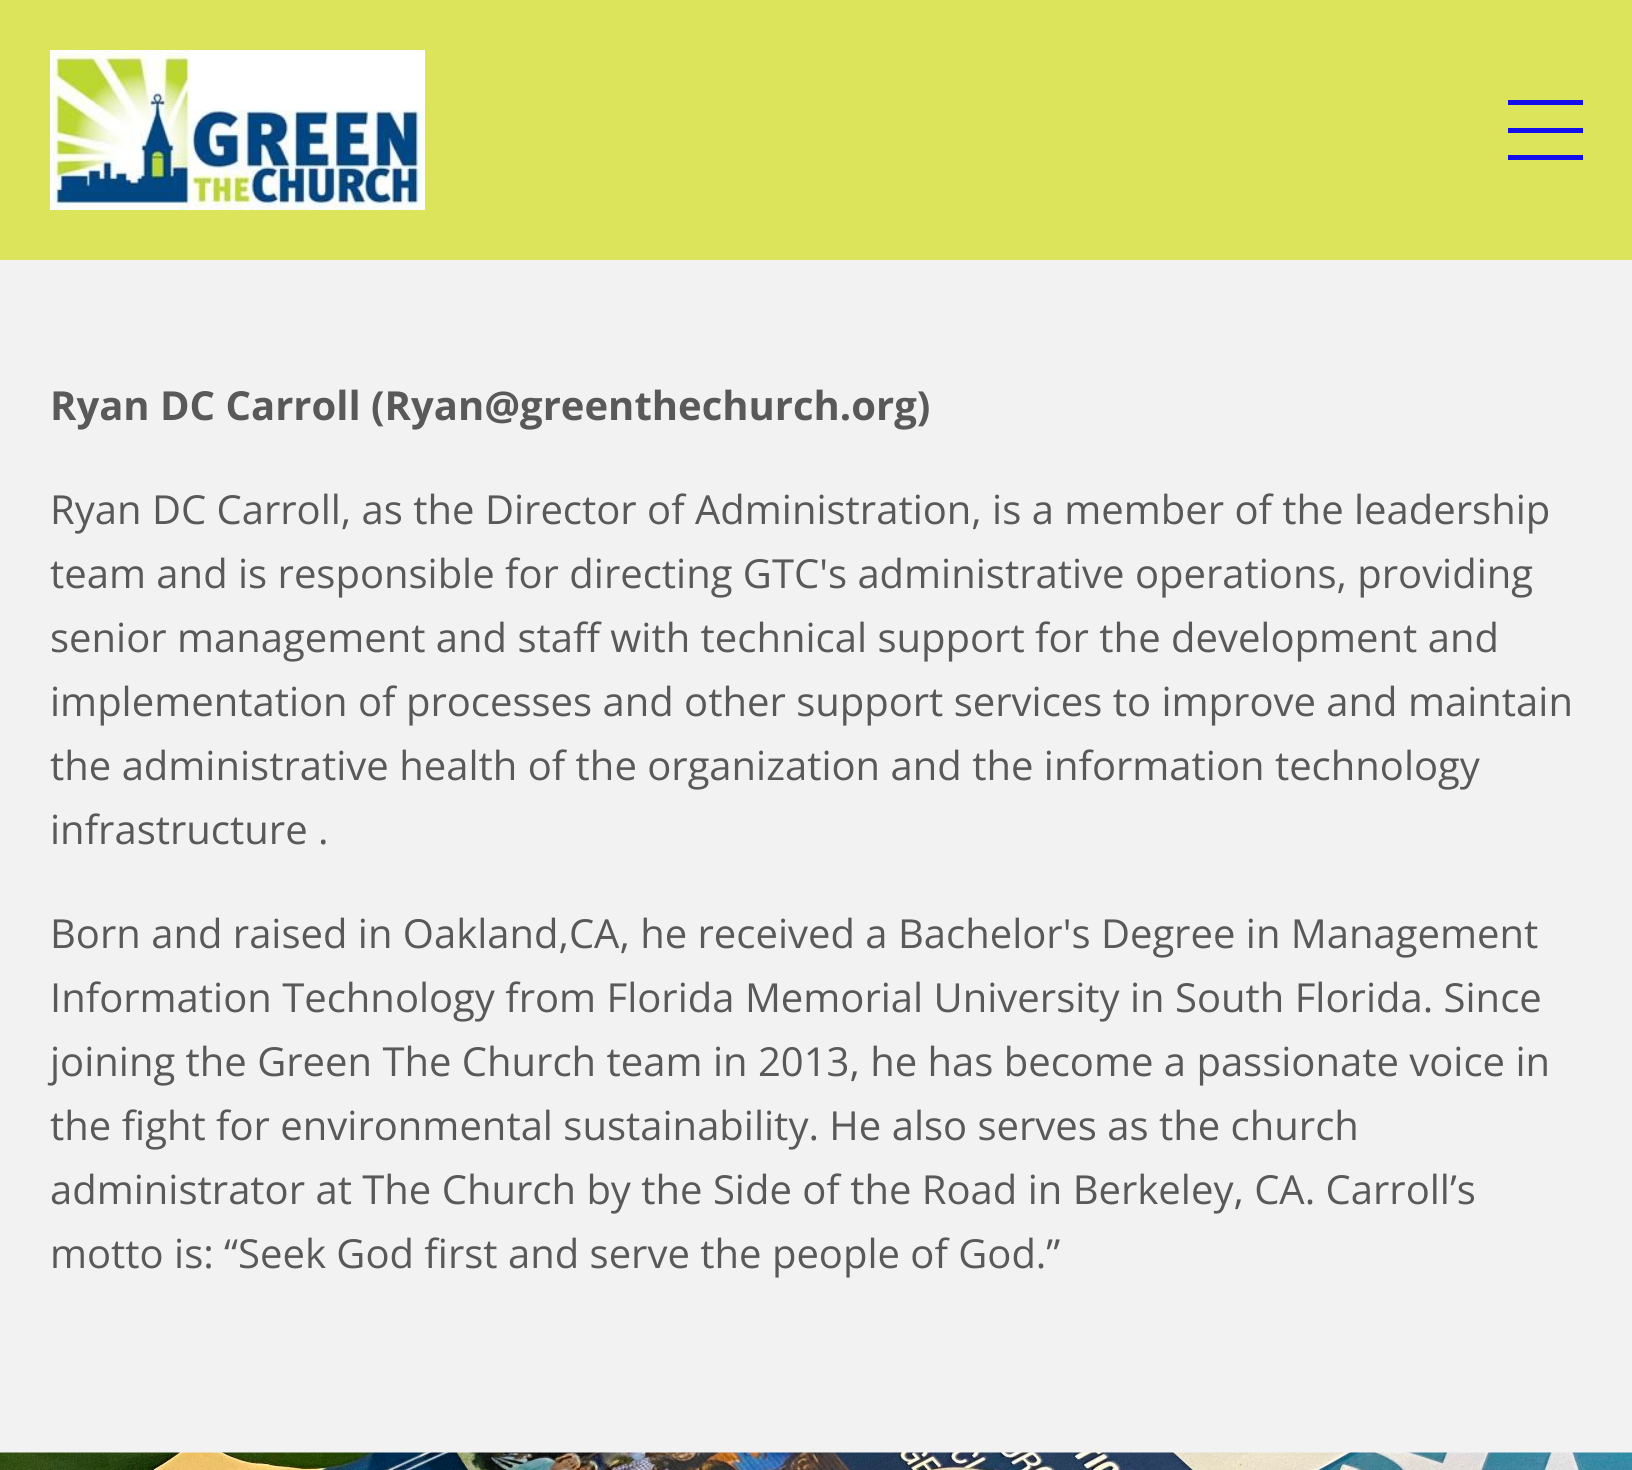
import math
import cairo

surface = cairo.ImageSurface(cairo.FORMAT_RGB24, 1632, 1470)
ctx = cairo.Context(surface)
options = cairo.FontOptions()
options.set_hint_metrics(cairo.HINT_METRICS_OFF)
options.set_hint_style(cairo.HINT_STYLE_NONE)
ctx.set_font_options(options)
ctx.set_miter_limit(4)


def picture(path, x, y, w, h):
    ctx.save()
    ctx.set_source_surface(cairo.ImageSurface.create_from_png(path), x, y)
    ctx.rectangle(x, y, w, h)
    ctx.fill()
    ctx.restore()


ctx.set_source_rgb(0.949, 0.949, 0.949)
ctx.paint()
ctx.set_source_rgb(0.859, 0.894, 0.357)
ctx.rectangle(0, 0, 1632, 260)
ctx.fill()
picture("img1.png", 50, 50, 375, 160)
ctx.set_source_rgb(0.075, 0.055, 0.922)
ctx.rectangle(1508, 100, 75, 5)
ctx.fill()
ctx.rectangle(1508, 128, 75, 5)
ctx.fill()
ctx.rectangle(1508, 155, 75, 5)
ctx.fill()
ctx.select_font_face("Open Sans", cairo.FONT_SLANT_NORMAL, cairo.FONT_WEIGHT_BOLD)
ctx.set_font_size(40)
ctx.set_source_rgb(0.349, 0.349, 0.349)
ctx.move_to(50, 420)
ctx.show_text("Ryan DC Carroll (Ryan@greenthechurch.org)")
ctx.select_font_face("Open Sans")
ctx.move_to(50, 524)
ctx.show_text("Ryan DC Carroll, as the Director of Administration, is a member of the leadership")
ctx.move_to(50, 588)
ctx.show_text("team and is responsible for directing GTC's administrative operations, providing")
ctx.move_to(50, 652)
ctx.show_text("senior management and staff with technical support for the development and")
ctx.move_to(50, 716)
ctx.show_text("implementation of processes and other support services to improve and maintain")
ctx.move_to(50, 780)
ctx.show_text("the administrative health of the organization and the information technology")
ctx.move_to(50, 844)
ctx.show_text("infrastructure .")
ctx.move_to(50, 948)
ctx.show_text("Born and raised in Oakland,CA, he received a Bachelor's Degree in Management")
ctx.move_to(50, 1012)
ctx.show_text("Information Technology from Florida Memorial University in South Florida. Since")
ctx.move_to(50, 1076)
ctx.show_text("joining the Green The Church team in 2013, he has become a passionate voice in")
ctx.move_to(50, 1140)
ctx.show_text("the fight for environmental sustainability. He also serves as the church")
ctx.move_to(50, 1204)
ctx.show_text("administrator at The Church by the Side of the Road in Berkeley, CA. Carroll’s")
ctx.move_to(50, 1268)
ctx.show_text("motto is: “Seek God first and serve the people of God.”")
picture("img2.png", 0, 1452, 1632, 18)
surface.write_to_png("page.png")
